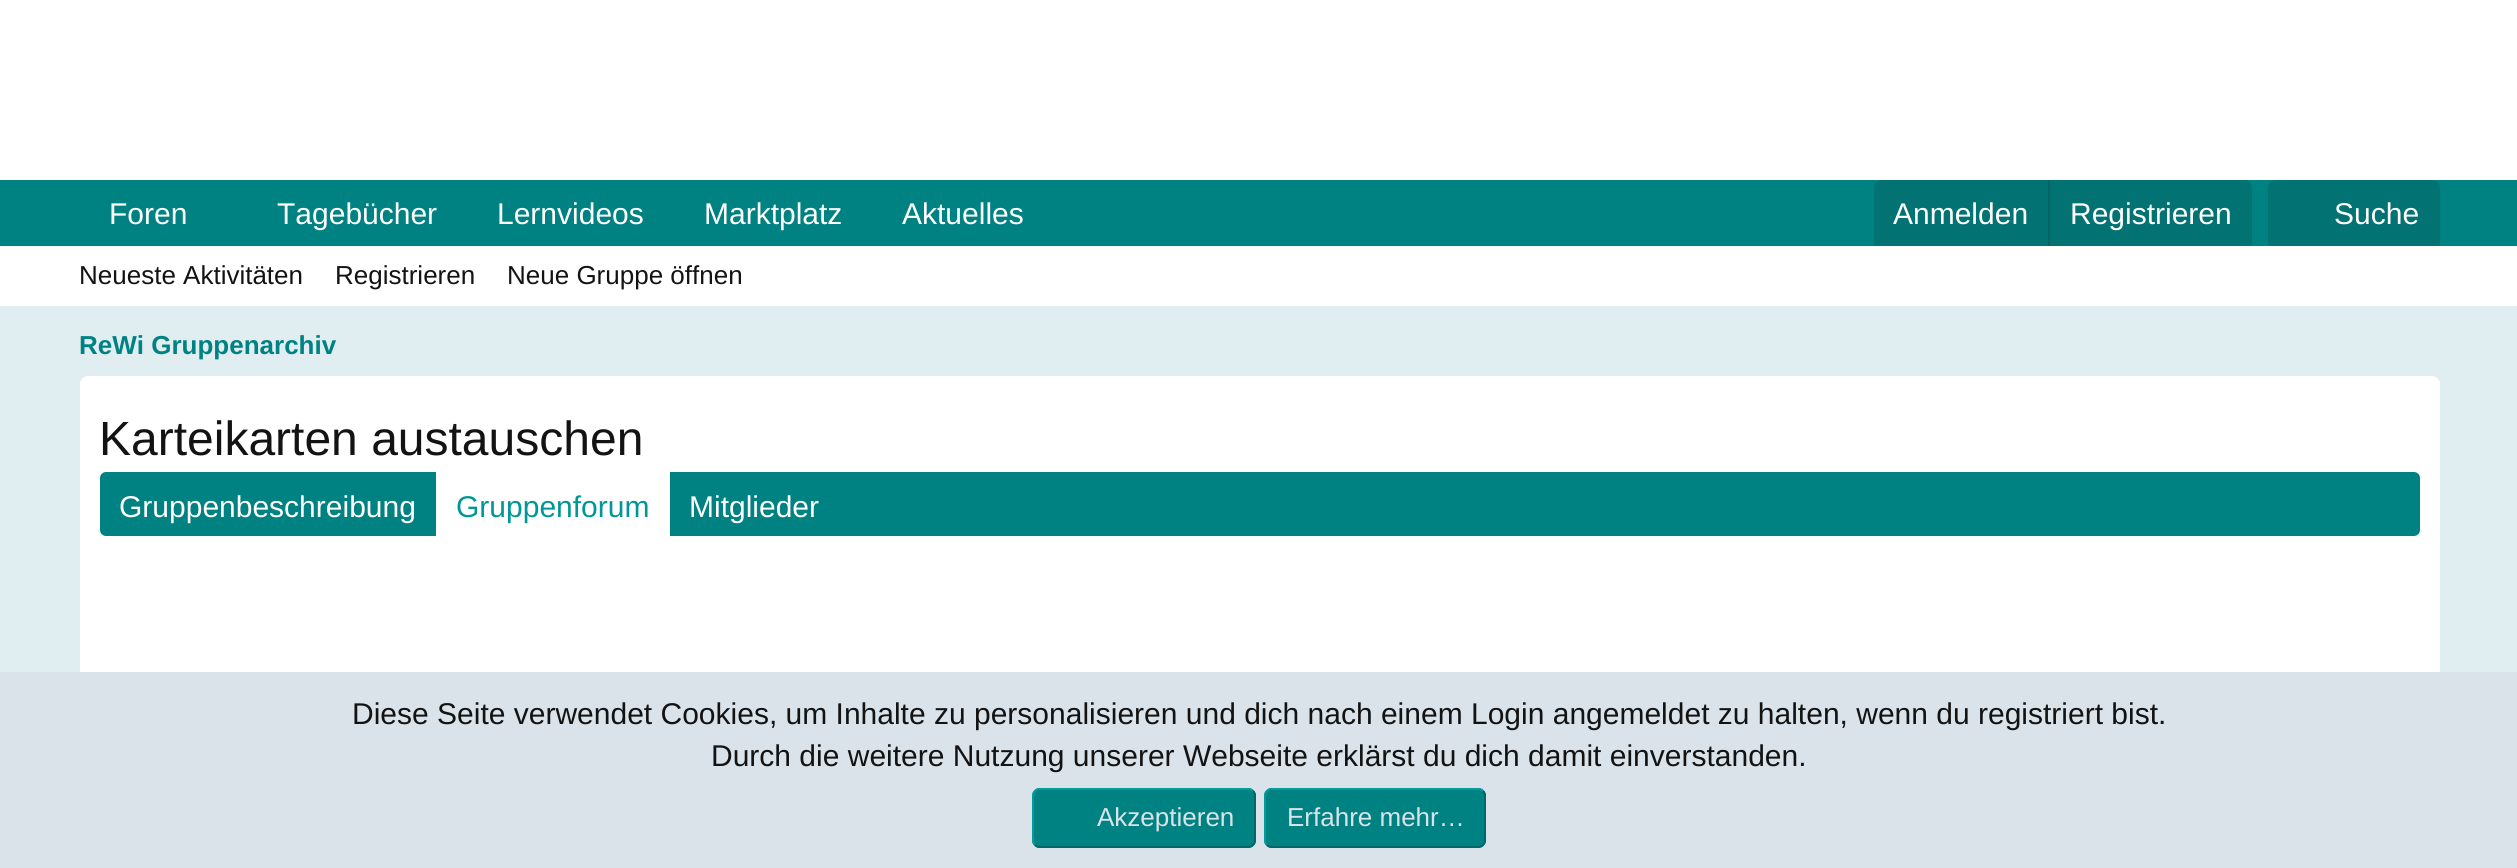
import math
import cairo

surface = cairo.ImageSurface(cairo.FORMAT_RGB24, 2517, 868)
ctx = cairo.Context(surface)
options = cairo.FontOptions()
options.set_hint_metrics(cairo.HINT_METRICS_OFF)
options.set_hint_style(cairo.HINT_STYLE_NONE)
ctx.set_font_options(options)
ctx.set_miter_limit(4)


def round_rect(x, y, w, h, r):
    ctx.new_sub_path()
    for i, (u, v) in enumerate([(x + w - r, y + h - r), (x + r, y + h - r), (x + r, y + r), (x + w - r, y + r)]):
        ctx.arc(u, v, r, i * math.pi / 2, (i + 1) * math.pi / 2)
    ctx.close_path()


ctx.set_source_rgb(0.878, 0.929, 0.945)
ctx.paint()
ctx.set_source_rgb(1, 1, 1)
ctx.rectangle(0, 0, 2517, 180)
ctx.fill()
ctx.set_source_rgb(0, 0.51, 0.51)
ctx.rectangle(0, 180, 2517, 66)
ctx.fill()
ctx.select_font_face("Liberation Sans")
ctx.set_font_size(30)
ctx.set_source_rgb(1, 1, 1)
ctx.move_to(109, 224)
ctx.show_text("Foren")
ctx.move_to(277, 224)
ctx.show_text("Tagebücher")
ctx.move_to(497, 224)
ctx.show_text("Lernvideos")
ctx.move_to(704, 224)
ctx.show_text("Marktplatz")
ctx.move_to(902, 224)
ctx.show_text("Aktuelles")
ctx.set_source_rgb(0.012, 0.447, 0.447)
ctx.new_path()
ctx.move_to(1882, 180)
ctx.line_to(2244, 180)
ctx.curve_to(2248.5, 180, 2252, 183.5, 2252, 188)
ctx.line_to(2252, 246)
ctx.line_to(1874, 246)
ctx.line_to(1874, 188)
ctx.curve_to(1874, 183.5, 1877.5, 180, 1882, 180)
ctx.close_path()
ctx.fill()
ctx.set_source_rgb(1, 1, 1)
ctx.move_to(1893, 224)
ctx.show_text("Anmelden")
ctx.set_source_rgb(0.024, 0.392, 0.392)
ctx.rectangle(2048, 180, 2, 66)
ctx.fill()
ctx.set_source_rgb(1, 1, 1)
ctx.move_to(2070, 224)
ctx.show_text("Registrieren")
ctx.set_source_rgb(0.012, 0.447, 0.447)
ctx.new_path()
ctx.move_to(2276, 180)
ctx.line_to(2432, 180)
ctx.curve_to(2436.5, 180, 2440, 183.5, 2440, 188)
ctx.line_to(2440, 246)
ctx.line_to(2268, 246)
ctx.line_to(2268, 188)
ctx.curve_to(2268, 183.5, 2271.5, 180, 2276, 180)
ctx.close_path()
ctx.fill()
ctx.set_source_rgb(1, 1, 1)
ctx.move_to(2334, 224)
ctx.show_text("Suche")
ctx.rectangle(0, 246, 2517, 60)
ctx.fill()
ctx.set_font_size(26)
ctx.set_source_rgb(0.078, 0.078, 0.078)
ctx.move_to(79, 284)
ctx.show_text("Neueste Aktivitäten")
ctx.move_to(335, 284)
ctx.show_text("Registrieren")
ctx.move_to(507, 284)
ctx.show_text("Neue Gruppe öffnen")
ctx.select_font_face("Liberation Sans", cairo.FONT_SLANT_NORMAL, cairo.FONT_WEIGHT_BOLD)
ctx.set_source_rgb(0, 0.51, 0.51)
ctx.move_to(79, 354)
ctx.show_text("ReWi Gruppenarchiv")
ctx.set_source_rgb(1, 1, 1)
round_rect(80, 376, 2360, 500, 8)
ctx.fill()
ctx.select_font_face("Liberation Sans")
ctx.set_font_size(48)
ctx.set_source_rgb(0.078, 0.078, 0.078)
ctx.move_to(99, 455)
ctx.show_text("Karteikarten austauschen")
ctx.set_source_rgb(0, 0.51, 0.51)
round_rect(100, 472, 2320, 64, 6)
ctx.fill()
ctx.set_font_size(30)
ctx.set_source_rgb(1, 1, 1)
ctx.move_to(119, 517)
ctx.show_text("Gruppenbeschreibung")
ctx.rectangle(436, 472, 234, 64)
ctx.fill()
ctx.set_source_rgb(0, 0.592, 0.592)
ctx.move_to(456, 517)
ctx.show_text("Gruppenforum")
ctx.set_source_rgb(1, 1, 1)
ctx.move_to(689, 517)
ctx.show_text("Mitglieder")
ctx.set_source_rgb(0.851, 0.89, 0.914)
ctx.rectangle(0, 672, 2517, 196)
ctx.fill()
ctx.set_source_rgb(0.078, 0.078, 0.078)
ctx.move_to(352, 724)
ctx.show_text("Diese Seite verwendet Cookies, um Inhalte zu personalisieren und dich nach einem Login angemeldet zu halten, wenn du registriert bist.")
ctx.move_to(711, 766)
ctx.show_text("Durch die weitere Nutzung unserer Webseite erklärst du dich damit einverstanden.")
ctx.set_source_rgb(0, 0.51, 0.51)
round_rect(1032, 788, 224, 60, 8)
ctx.fill()
ctx.new_path()
ctx.move_to(1253, 791)
ctx.curve_to(1254.5, 792.5, 1255, 794, 1255, 796)
ctx.line_to(1255, 840)
ctx.curve_to(1255, 842, 1254.5, 843.5, 1253, 845)
ctx.curve_to(1251.5, 846.5, 1250, 847, 1248, 847)
ctx.line_to(1040, 847)
ctx.curve_to(1038, 847, 1036.5, 846.5, 1035, 845)
ctx.set_source_rgb(0, 0.408, 0.412)
ctx.stroke()
ctx.new_path()
ctx.move_to(1035, 845)
ctx.curve_to(1033.5, 843.5, 1033, 842, 1033, 840)
ctx.line_to(1033, 796)
ctx.curve_to(1033, 794, 1033.5, 792.5, 1035, 791)
ctx.curve_to(1036.5, 789.5, 1038, 789, 1040, 789)
ctx.line_to(1248, 789)
ctx.curve_to(1250, 789, 1251.5, 789.5, 1253, 791)
ctx.set_source_rgb(0, 0.608, 0.608)
ctx.stroke()
ctx.set_font_size(26)
ctx.set_source_rgb(0.851, 0.89, 0.914)
ctx.move_to(1097, 826)
ctx.show_text("Akzeptieren")
ctx.set_source_rgb(0, 0.51, 0.51)
round_rect(1264, 788, 222, 60, 8)
ctx.fill()
ctx.new_path()
ctx.move_to(1483, 791)
ctx.curve_to(1484.5, 792.5, 1485, 794, 1485, 796)
ctx.line_to(1485, 840)
ctx.curve_to(1485, 842, 1484.5, 843.5, 1483, 845)
ctx.curve_to(1481.5, 846.5, 1480, 847, 1478, 847)
ctx.line_to(1272, 847)
ctx.curve_to(1270, 847, 1268.5, 846.5, 1267, 845)
ctx.set_source_rgb(0, 0.408, 0.412)
ctx.stroke()
ctx.new_path()
ctx.move_to(1267, 845)
ctx.curve_to(1265.5, 843.5, 1265, 842, 1265, 840)
ctx.line_to(1265, 796)
ctx.curve_to(1265, 794, 1265.5, 792.5, 1267, 791)
ctx.curve_to(1268.5, 789.5, 1270, 789, 1272, 789)
ctx.line_to(1478, 789)
ctx.curve_to(1480, 789, 1481.5, 789.5, 1483, 791)
ctx.set_source_rgb(0, 0.608, 0.608)
ctx.stroke()
ctx.set_source_rgb(0.851, 0.89, 0.914)
ctx.move_to(1287, 826)
ctx.show_text("Erfahre mehr…")
surface.write_to_png("page.png")
